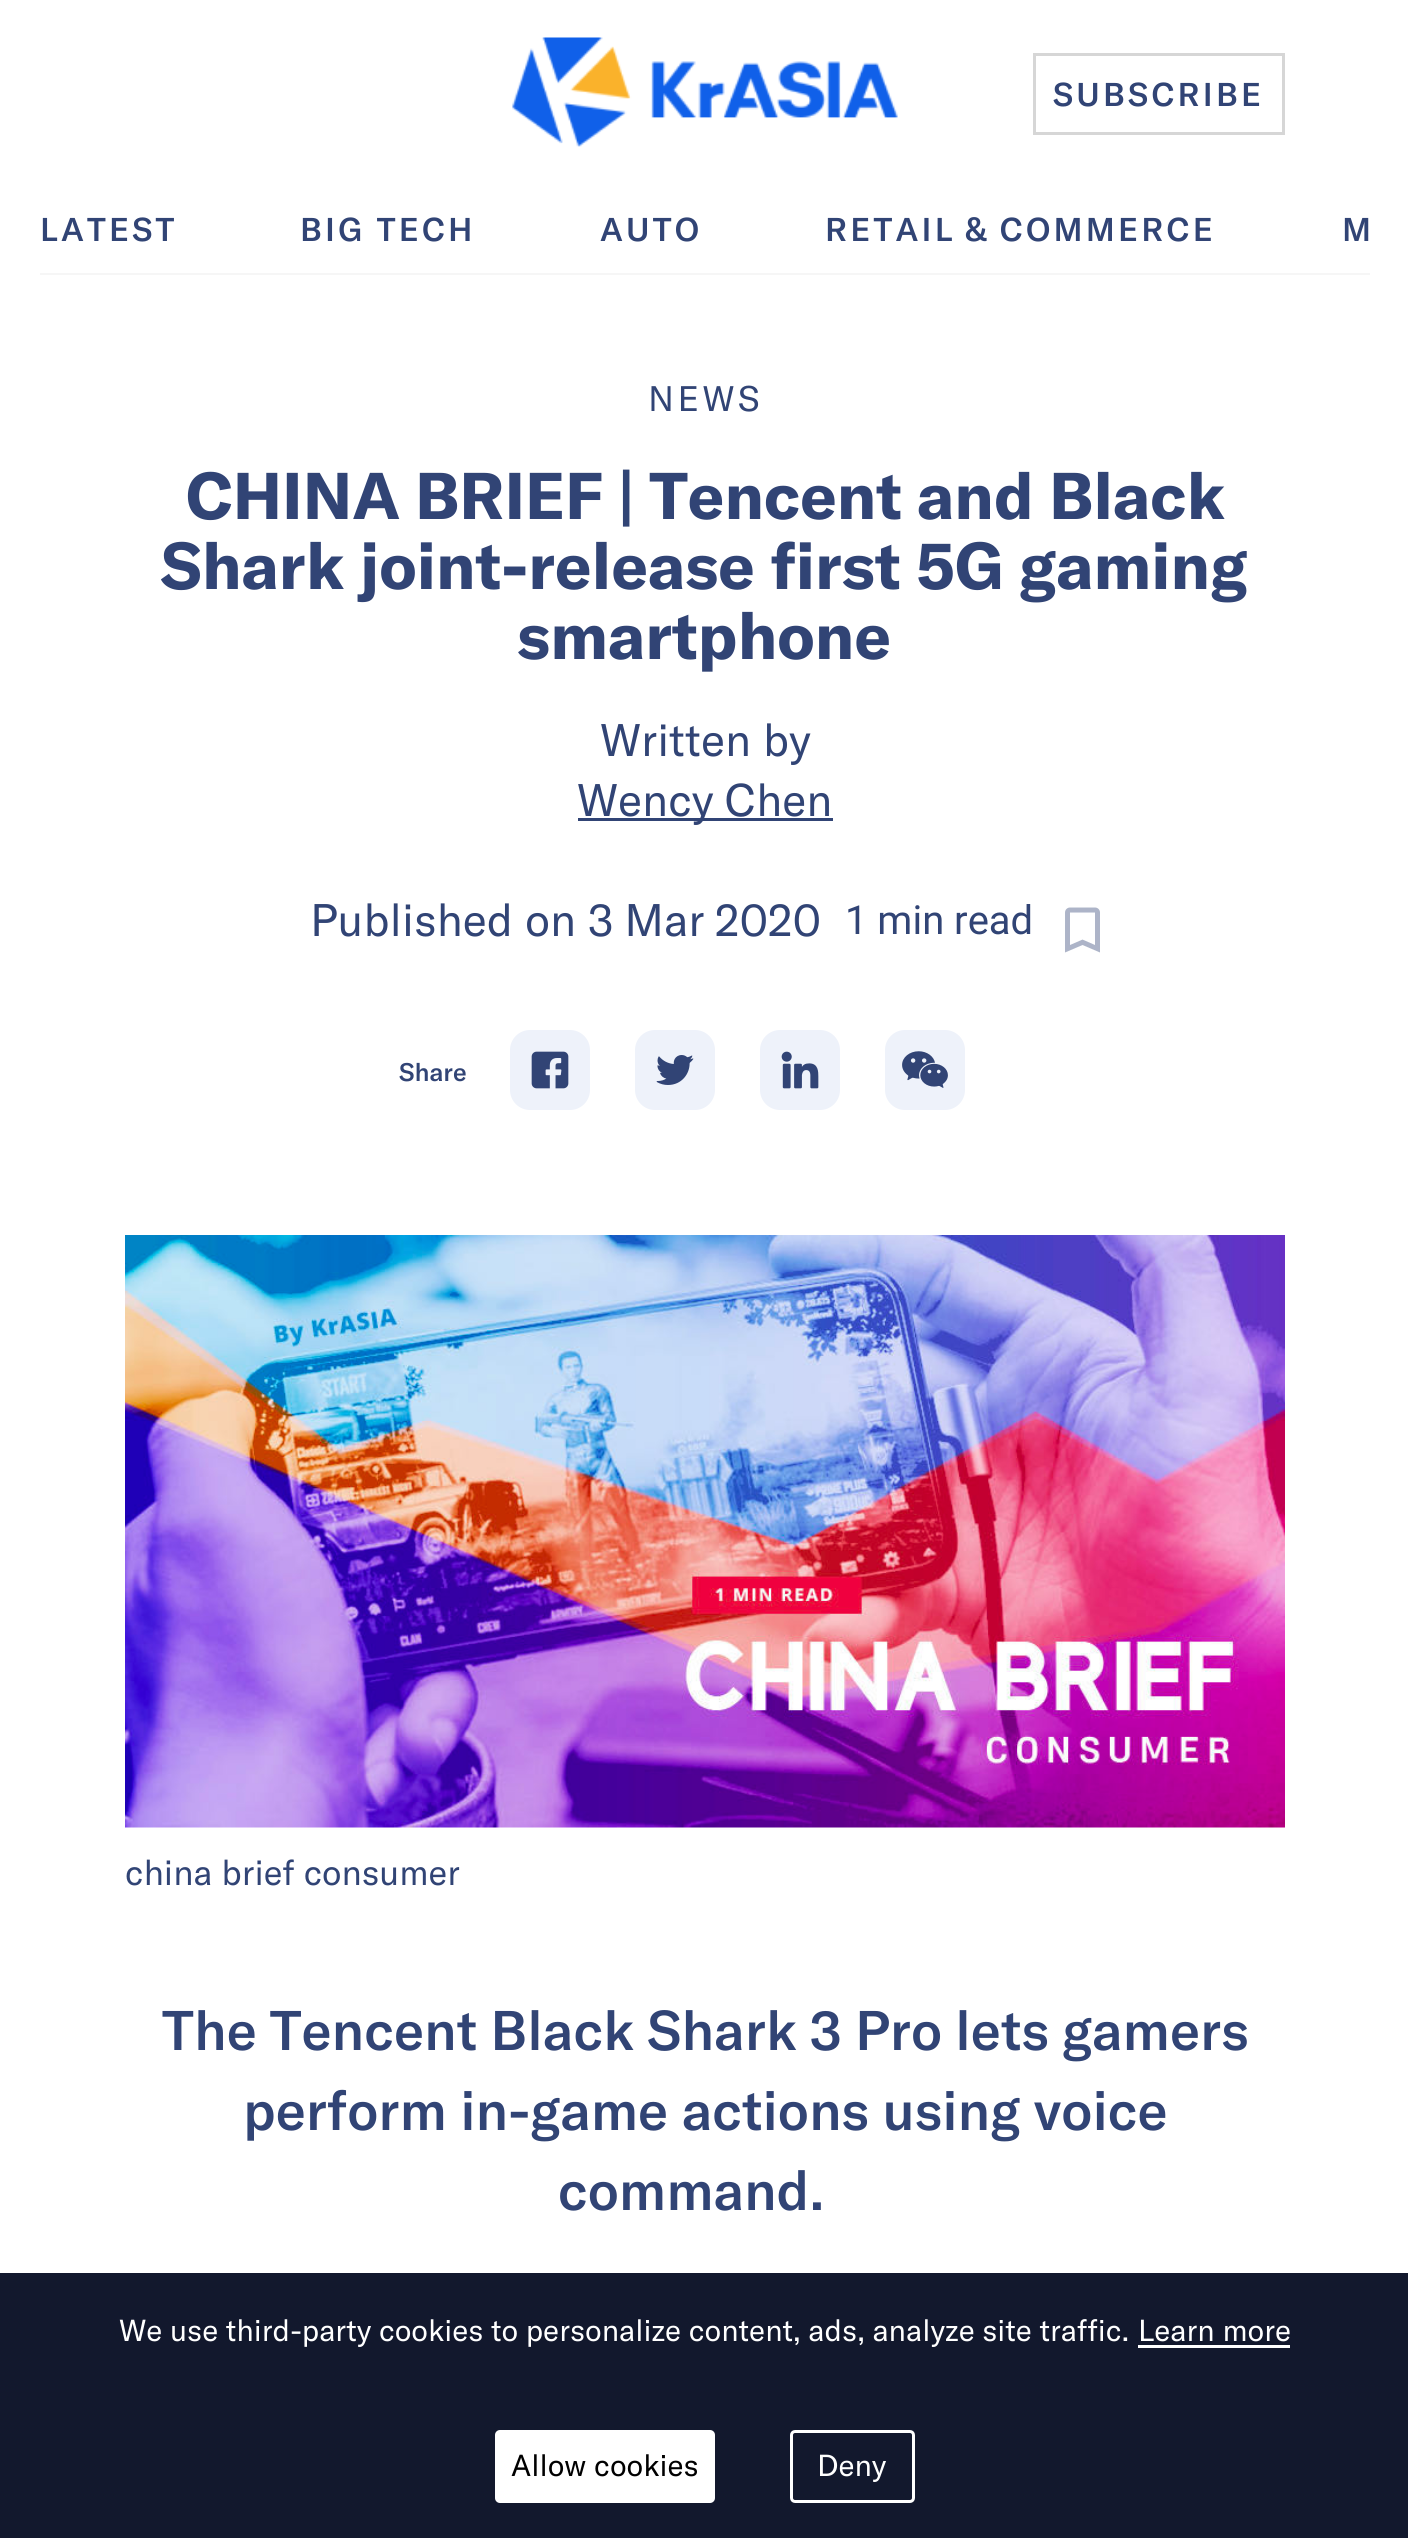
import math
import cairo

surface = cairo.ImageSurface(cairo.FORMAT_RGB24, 1408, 2538)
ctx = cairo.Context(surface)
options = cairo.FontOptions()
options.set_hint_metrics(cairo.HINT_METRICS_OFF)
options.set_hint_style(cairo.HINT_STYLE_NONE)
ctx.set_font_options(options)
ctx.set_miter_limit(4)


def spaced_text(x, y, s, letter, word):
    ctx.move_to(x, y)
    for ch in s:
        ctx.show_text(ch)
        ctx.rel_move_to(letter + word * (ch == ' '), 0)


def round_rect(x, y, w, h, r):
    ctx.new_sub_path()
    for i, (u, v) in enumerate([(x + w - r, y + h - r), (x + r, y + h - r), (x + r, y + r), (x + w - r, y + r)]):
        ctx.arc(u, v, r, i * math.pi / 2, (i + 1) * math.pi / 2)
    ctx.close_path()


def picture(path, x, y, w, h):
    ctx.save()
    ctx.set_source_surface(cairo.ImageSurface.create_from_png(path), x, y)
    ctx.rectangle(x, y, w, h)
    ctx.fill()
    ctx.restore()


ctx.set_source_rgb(1, 1, 1)
ctx.paint()
picture("img1.png", 512, 37, 386, 110)
ctx.rectangle(1034.5, 54.5, 249, 79)
ctx.set_source_rgb(0.839, 0.839, 0.839)
ctx.set_line_width(3)
ctx.stroke()
ctx.select_font_face("GT America Medium")
ctx.set_font_size(32.5)
ctx.set_source_rgb(0.192, 0.267, 0.459)
spaced_text(1053, 106, "SUBSCRIBE", 3.25, 0)
spaced_text(40, 241, "LATEST", 3.25, 0)
spaced_text(300, 241, "BIG TECH", 3.25, 0)
spaced_text(600, 241, "AUTO", 3.25, 0)
spaced_text(825, 241, "RETAIL & COMMERCE", 3.25, -2)
spaced_text(1342, 241, "M", 3.25, 0)
ctx.set_source_rgb(0.961, 0.961, 0.961)
ctx.rectangle(40, 273, 1330, 2)
ctx.fill()
ctx.select_font_face("GT America")
ctx.set_font_size(35)
ctx.set_source_rgb(0.192, 0.267, 0.459)
spaced_text(648, 411, "NEWS", 3.5, 0)
ctx.select_font_face("GT America", cairo.FONT_SLANT_NORMAL, cairo.FONT_WEIGHT_BOLD)
ctx.set_font_size(65)
spaced_text(186, 519, "CHINA BRIEF | Tencent and Black", 0, -1)
spaced_text(161, 589, "Shark joint-release first 5G gaming", 0, -0.5)
ctx.move_to(517, 659)
ctx.show_text("smartphone")
ctx.select_font_face("GT America")
ctx.set_font_size(45)
ctx.move_to(600, 756)
ctx.show_text("Written by")
ctx.rectangle(578, 818, 255, 3)
ctx.fill()
spaced_text(577, 816, "Wency Chen", 0, -1)
ctx.move_to(310, 936)
ctx.show_text("Published on")
spaced_text(588, 936, "3 Mar 2020", 0, -1)
ctx.select_font_face("Roboto")
ctx.set_font_size(40)
ctx.move_to(845, 934)
ctx.show_text("1 min read")
picture("img2.png", 1065, 907, 35, 46)
ctx.select_font_face("GT America Medium")
ctx.set_font_size(25)
ctx.move_to(399, 1081)
ctx.show_text("Share")
ctx.set_source_rgb(0.933, 0.949, 0.98)
round_rect(510, 1030, 80, 80, 20)
ctx.fill()
picture("img3.png", 531, 1051, 38, 38)
round_rect(635, 1030, 80, 80, 20)
ctx.fill()
picture("img4.png", 656, 1055, 38, 30)
round_rect(760, 1030, 80, 80, 20)
ctx.fill()
picture("img5.png", 781, 1051, 38, 38)
round_rect(885, 1030, 80, 80, 20)
ctx.fill()
picture("img6.png", 902, 1051, 46, 37)
picture("img7.png", 125, 1235, 1160, 593)
ctx.select_font_face("GT America")
ctx.set_font_size(35)
ctx.set_source_rgb(0.192, 0.267, 0.459)
ctx.move_to(125, 1885)
ctx.show_text("china brief consumer")
ctx.select_font_face("GT America Medium")
ctx.set_font_size(55)
spaced_text(162, 2050, "The Tencent Black Shark 3 Pro lets gamers", 0, -1)
spaced_text(243, 2130, "perform in-game actions using voice", 0, -0.5)
ctx.move_to(558, 2210)
ctx.show_text("command.")
ctx.set_source_rgb(0.071, 0.094, 0.176)
ctx.rectangle(0, 2273, 1408, 265)
ctx.fill()
ctx.select_font_face("GT America")
ctx.set_font_size(30)
ctx.set_source_rgb(1, 1, 1)
spaced_text(119, 2341, "We use third-party cookies to personalize content, ads, analyze site traffic.", 0, -0.25)
ctx.move_to(1138, 2341)
ctx.show_text("Learn more")
ctx.rectangle(1138, 2345, 152, 3)
ctx.fill()
round_rect(495, 2430, 220, 73, 5)
ctx.fill()
ctx.set_source_rgb(0, 0, 0)
ctx.move_to(511, 2476)
ctx.show_text("Allow cookies")
round_rect(791.5, 2431.5, 122, 70, 3.5)
ctx.set_source_rgb(1, 1, 1)
ctx.stroke()
ctx.move_to(817, 2476)
ctx.show_text("Deny")
surface.write_to_png("page.png")
